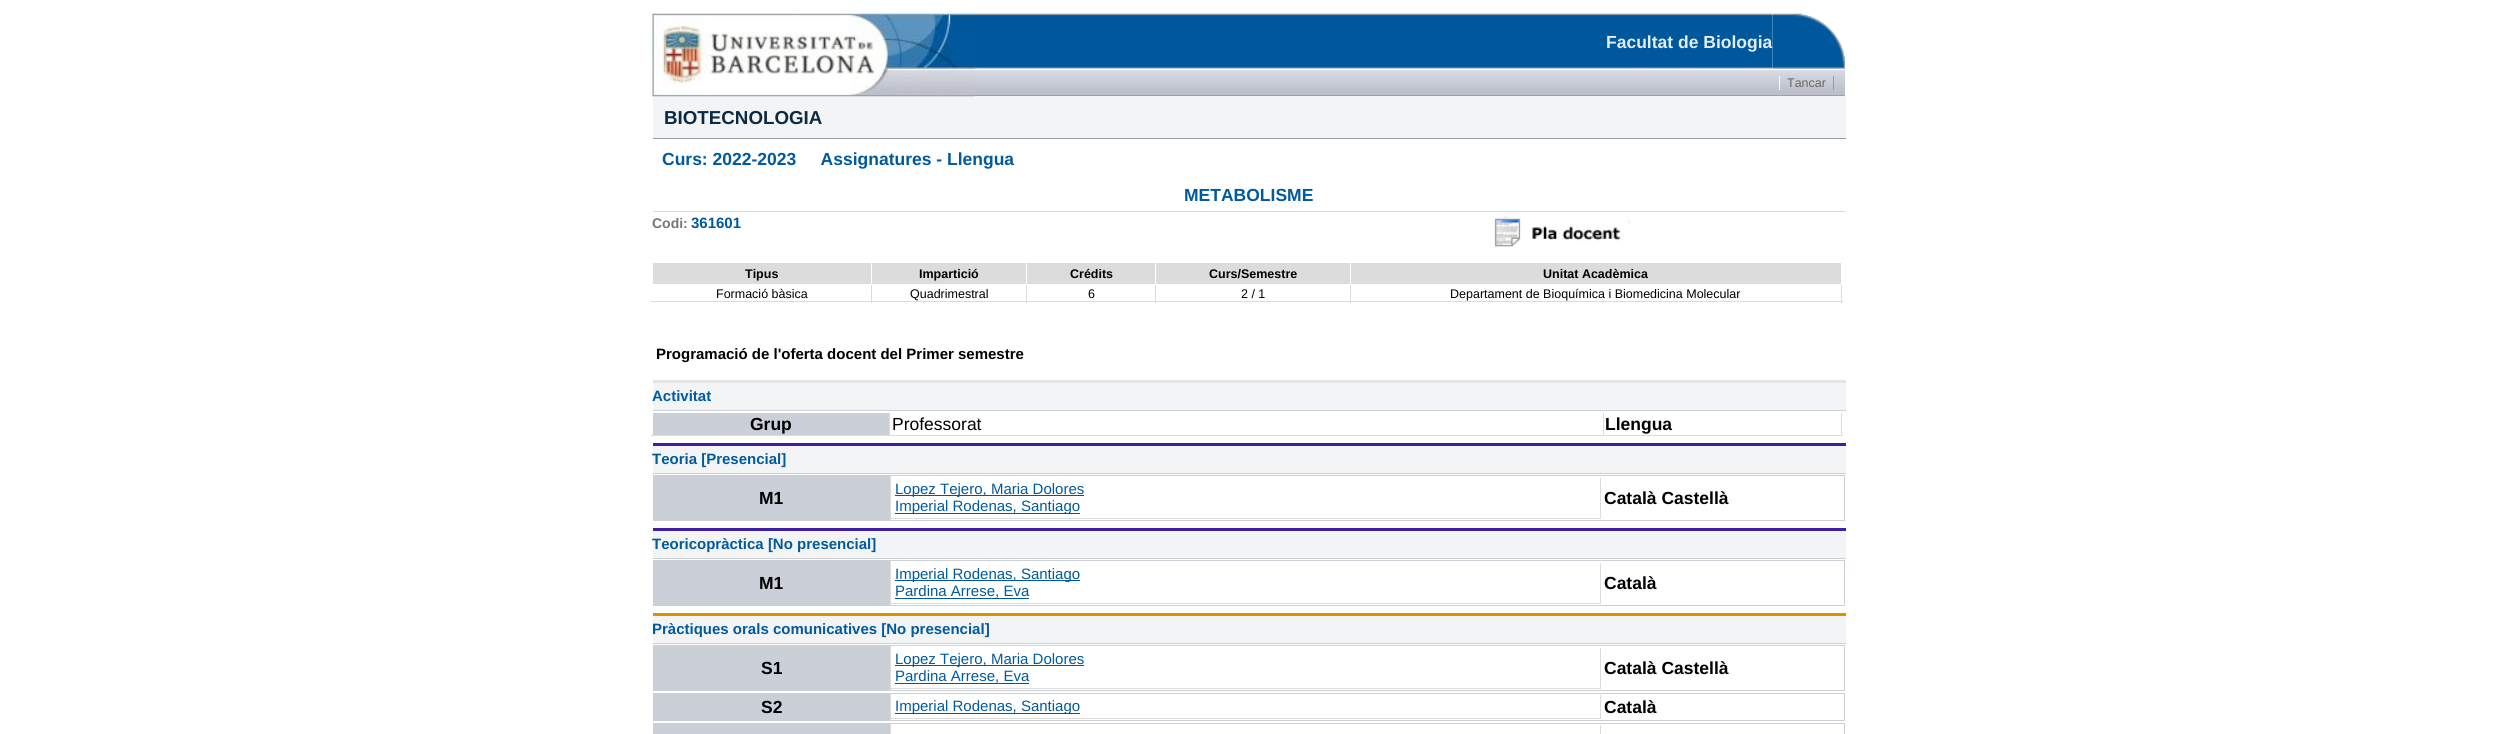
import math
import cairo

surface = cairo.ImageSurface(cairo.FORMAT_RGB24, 2497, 734)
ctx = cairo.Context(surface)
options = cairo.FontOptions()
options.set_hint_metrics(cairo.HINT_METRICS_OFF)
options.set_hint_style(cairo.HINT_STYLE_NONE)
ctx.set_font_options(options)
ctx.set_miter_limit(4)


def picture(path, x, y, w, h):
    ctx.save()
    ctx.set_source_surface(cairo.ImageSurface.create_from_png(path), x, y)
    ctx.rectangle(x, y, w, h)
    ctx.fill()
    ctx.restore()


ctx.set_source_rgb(1, 1, 1)
ctx.paint()
ctx.set_source_rgb(0.953, 0.957, 0.961)
ctx.rectangle(653, 96, 1193, 42)
ctx.fill()
picture("img1.png", 652, 13, 323, 84)
picture("img2.png", 975, 13, 798, 56)
ctx.select_font_face("Liberation Sans", cairo.FONT_SLANT_NORMAL, cairo.FONT_WEIGHT_BOLD)
ctx.set_font_size(17.5)
ctx.set_source_rgb(0.886, 0.925, 0.953)
ctx.move_to(1606, 48)
ctx.show_text("Facultat de Biologia")
picture("img4.png", 975, 68, 870, 28)
picture("img3.png", 1772, 13, 73, 56)
ctx.select_font_face("Liberation Sans")
ctx.set_font_size(12.5)
ctx.set_source_rgb(0.4, 0.4, 0.4)
ctx.move_to(1787, 87)
ctx.show_text("Tancar")
ctx.set_source_rgb(0.592, 0.616, 0.651)
ctx.rectangle(1833, 76, 1, 14)
ctx.fill()
ctx.set_source_rgb(1, 1, 1)
ctx.rectangle(1779, 76, 1, 14)
ctx.fill()
ctx.set_source_rgb(0.592, 0.616, 0.651)
ctx.rectangle(653, 138, 1193, 1)
ctx.fill()
ctx.select_font_face("Liberation Sans", cairo.FONT_SLANT_NORMAL, cairo.FONT_WEIGHT_BOLD)
ctx.set_font_size(18.75)
ctx.set_source_rgb(0.047, 0.165, 0.259)
ctx.move_to(664, 124)
ctx.show_text("BIOTECNOLOGIA")
ctx.set_font_size(17.5)
ctx.set_source_rgb(0, 0.353, 0.612)
ctx.move_to(662, 165)
ctx.show_text("Curs: 2022-2023     Assignatures - Llengua")
ctx.set_source_rgb(0.863, 0.863, 0.863)
ctx.rectangle(653, 211, 1193, 1)
ctx.fill()
ctx.set_source_rgb(0, 0.353, 0.612)
ctx.move_to(1184, 201)
ctx.show_text("METABOLISME")
ctx.set_font_size(14)
ctx.set_source_rgb(0.467, 0.467, 0.467)
ctx.move_to(652, 228)
ctx.show_text("Codi:")
ctx.set_font_size(15)
ctx.set_source_rgb(0, 0.353, 0.612)
ctx.move_to(691, 228)
ctx.show_text("361601")
picture("img5.png", 1494, 216, 136, 31)
ctx.set_source_rgb(0.863, 0.863, 0.863)
ctx.rectangle(653, 263, 218, 21)
ctx.fill()
ctx.set_font_size(12.5)
ctx.set_source_rgb(0, 0, 0)
ctx.move_to(745, 278)
ctx.show_text("Tipus")
ctx.set_source_rgb(0.863, 0.863, 0.863)
ctx.rectangle(872, 263, 154, 21)
ctx.fill()
ctx.rectangle(1841, 284, 1, 19)
ctx.fill()
ctx.rectangle(1350, 301, 493, 1)
ctx.fill()
ctx.rectangle(1350, 284, 1, 19)
ctx.fill()
ctx.rectangle(1155, 301, 196, 1)
ctx.fill()
ctx.rectangle(1155, 284, 1, 19)
ctx.fill()
ctx.rectangle(1026, 301, 130, 1)
ctx.fill()
ctx.rectangle(1026, 284, 1, 19)
ctx.fill()
ctx.rectangle(871, 301, 157, 1)
ctx.fill()
ctx.rectangle(871, 284, 1, 19)
ctx.fill()
ctx.set_source_rgb(1, 1, 1)
ctx.rectangle(871, 284, 1, 1)
ctx.fill()
ctx.set_source_rgb(0, 0, 0)
ctx.move_to(919, 278)
ctx.show_text("Impartició")
ctx.set_source_rgb(0.863, 0.863, 0.863)
ctx.rectangle(1027, 263, 128, 21)
ctx.fill()
ctx.set_source_rgb(1, 1, 1)
ctx.rectangle(1026, 284, 1, 1)
ctx.fill()
ctx.set_source_rgb(0, 0, 0)
ctx.move_to(1070, 278)
ctx.show_text("Crédits")
ctx.set_source_rgb(0.863, 0.863, 0.863)
ctx.rectangle(1156, 263, 194, 21)
ctx.fill()
ctx.set_source_rgb(1, 1, 1)
ctx.rectangle(1155, 284, 1, 1)
ctx.fill()
ctx.set_source_rgb(0, 0, 0)
ctx.move_to(1209, 278)
ctx.show_text("Curs/Semestre")
ctx.set_source_rgb(0.863, 0.863, 0.863)
ctx.rectangle(1351, 263, 490, 21)
ctx.fill()
ctx.set_source_rgb(1, 1, 1)
ctx.rectangle(1841, 284, 1, 1)
ctx.fill()
ctx.rectangle(1350, 284, 1, 1)
ctx.fill()
ctx.set_source_rgb(0, 0, 0)
ctx.move_to(1543, 278)
ctx.show_text("Unitat Acadèmica")
ctx.set_source_rgb(0.863, 0.863, 0.863)
ctx.rectangle(651, 301, 222, 1)
ctx.fill()
ctx.select_font_face("Liberation Sans")
ctx.set_source_rgb(0, 0, 0)
ctx.move_to(716, 298)
ctx.show_text("Formació bàsica")
ctx.move_to(910, 298)
ctx.show_text("Quadrimestral")
ctx.move_to(1088, 298)
ctx.show_text("6")
ctx.move_to(1241, 298)
ctx.show_text("2 / 1")
ctx.move_to(1450, 298)
ctx.show_text("Departament de Bioquímica i Biomedicina Molecular")
ctx.select_font_face("Liberation Sans", cairo.FONT_SLANT_NORMAL, cairo.FONT_WEIGHT_BOLD)
ctx.set_font_size(15)
ctx.move_to(656, 359)
ctx.show_text("Programació de l'oferta docent del Primer semestre")
ctx.set_source_rgb(0.953, 0.957, 0.961)
ctx.rectangle(653, 383, 1193, 27)
ctx.fill()
ctx.set_source_rgb(0.894, 0.894, 0.894)
ctx.rectangle(653, 380, 1193, 3)
ctx.fill()
ctx.set_source_rgb(0.796, 0.812, 0.847)
ctx.rectangle(653, 410, 1193, 1)
ctx.fill()
ctx.set_source_rgb(0, 0.353, 0.612)
ctx.move_to(652, 401)
ctx.show_text("Activitat")
ctx.set_source_rgb(0.796, 0.812, 0.847)
ctx.rectangle(653, 413, 236, 22)
ctx.fill()
ctx.set_source_rgb(0.863, 0.863, 0.863)
ctx.rectangle(1841, 413, 1, 23)
ctx.fill()
ctx.rectangle(1603, 435, 240, 1)
ctx.fill()
ctx.rectangle(1603, 413, 1, 23)
ctx.fill()
ctx.rectangle(889, 435, 715, 1)
ctx.fill()
ctx.rectangle(889, 413, 1, 23)
ctx.fill()
ctx.rectangle(651, 435, 239, 1)
ctx.fill()
ctx.set_font_size(17.5)
ctx.set_source_rgb(0, 0, 0)
ctx.move_to(750, 430)
ctx.show_text("Grup")
ctx.select_font_face("Liberation Sans")
ctx.move_to(892, 430)
ctx.show_text("Professorat")
ctx.select_font_face("Liberation Sans", cairo.FONT_SLANT_NORMAL, cairo.FONT_WEIGHT_BOLD)
ctx.move_to(1605, 430)
ctx.show_text("Llengua")
ctx.set_source_rgb(0.953, 0.957, 0.961)
ctx.rectangle(653, 446, 1193, 27)
ctx.fill()
ctx.set_source_rgb(0.247, 0.118, 0.659)
ctx.rectangle(653, 443, 1193, 3)
ctx.fill()
ctx.set_source_rgb(0.796, 0.812, 0.847)
ctx.rectangle(653, 473, 1193, 1)
ctx.fill()
ctx.set_font_size(15)
ctx.set_source_rgb(0, 0.353, 0.612)
ctx.move_to(652, 464)
ctx.show_text("Teoria [Presencial]")
ctx.rectangle(653.5, 475.5, 1191, 45)
ctx.set_source_rgb(0.796, 0.812, 0.847)
ctx.set_line_width(1)
ctx.stroke()
ctx.rectangle(654, 476, 236, 44)
ctx.fill()
ctx.set_font_size(17.5)
ctx.set_source_rgb(0, 0, 0)
ctx.move_to(759, 504)
ctx.show_text("M1")
ctx.set_source_rgb(0.863, 0.863, 0.863)
ctx.rectangle(890, 476, 1, 45)
ctx.fill()
ctx.rectangle(1600, 478, 1, 41)
ctx.fill()
ctx.rectangle(891, 518, 710, 1)
ctx.fill()
ctx.set_source_rgb(0, 0.345, 0.612)
ctx.rectangle(895, 495, 189, 1)
ctx.fill()
ctx.select_font_face("Liberation Sans")
ctx.set_font_size(15)
ctx.set_source_rgb(0, 0.353, 0.612)
ctx.move_to(895, 494)
ctx.show_text("Lopez Tejero, Maria Dolores")
ctx.set_source_rgb(0, 0.345, 0.612)
ctx.rectangle(895, 513, 185, 1)
ctx.fill()
ctx.set_source_rgb(0, 0.353, 0.612)
ctx.move_to(895, 511)
ctx.show_text("Imperial Rodenas, Santiago")
ctx.select_font_face("Liberation Sans", cairo.FONT_SLANT_NORMAL, cairo.FONT_WEIGHT_BOLD)
ctx.set_font_size(17.5)
ctx.set_source_rgb(0, 0, 0)
ctx.move_to(1604, 504)
ctx.show_text("Català Castellà")
ctx.set_source_rgb(0.953, 0.957, 0.961)
ctx.rectangle(653, 531, 1193, 27)
ctx.fill()
ctx.set_source_rgb(0.247, 0.118, 0.659)
ctx.rectangle(653, 528, 1193, 3)
ctx.fill()
ctx.set_source_rgb(0.796, 0.812, 0.847)
ctx.rectangle(653, 558, 1193, 1)
ctx.fill()
ctx.set_font_size(15)
ctx.set_source_rgb(0, 0.353, 0.612)
ctx.move_to(652, 549)
ctx.show_text("Teoricopràctica [No presencial]")
ctx.rectangle(653.5, 560.5, 1191, 45)
ctx.set_source_rgb(0.796, 0.812, 0.847)
ctx.stroke()
ctx.rectangle(654, 561, 236, 44)
ctx.fill()
ctx.set_font_size(17.5)
ctx.set_source_rgb(0, 0, 0)
ctx.move_to(759, 589)
ctx.show_text("M1")
ctx.set_source_rgb(0.863, 0.863, 0.863)
ctx.rectangle(890, 561, 1, 45)
ctx.fill()
ctx.rectangle(1600, 563, 1, 41)
ctx.fill()
ctx.rectangle(891, 603, 710, 1)
ctx.fill()
ctx.set_source_rgb(0, 0.345, 0.612)
ctx.rectangle(895, 580, 185, 1)
ctx.fill()
ctx.select_font_face("Liberation Sans")
ctx.set_font_size(15)
ctx.set_source_rgb(0, 0.353, 0.612)
ctx.move_to(895, 579)
ctx.show_text("Imperial Rodenas, Santiago")
ctx.move_to(895, 596)
ctx.show_text("Pardina Arrese, Eva")
ctx.set_source_rgb(0, 0.345, 0.612)
ctx.rectangle(895, 598, 134, 1)
ctx.fill()
ctx.select_font_face("Liberation Sans", cairo.FONT_SLANT_NORMAL, cairo.FONT_WEIGHT_BOLD)
ctx.set_font_size(17.5)
ctx.set_source_rgb(0, 0, 0)
ctx.move_to(1604, 589)
ctx.show_text("Català")
ctx.set_source_rgb(0.953, 0.957, 0.961)
ctx.rectangle(653, 616, 1193, 27)
ctx.fill()
ctx.set_source_rgb(0.867, 0.565, 0)
ctx.rectangle(653, 613, 1193, 3)
ctx.fill()
ctx.set_source_rgb(0.796, 0.812, 0.847)
ctx.rectangle(653, 643, 1193, 1)
ctx.fill()
ctx.set_font_size(15)
ctx.set_source_rgb(0, 0.353, 0.612)
ctx.move_to(652, 634)
ctx.show_text("Pràctiques orals comunicatives [No presencial]")
ctx.rectangle(653.5, 645.5, 1191, 45)
ctx.set_source_rgb(0.796, 0.812, 0.847)
ctx.stroke()
ctx.rectangle(654, 646, 236, 44)
ctx.fill()
ctx.set_font_size(17.5)
ctx.set_source_rgb(0, 0, 0)
ctx.move_to(761, 674)
ctx.show_text("S1")
ctx.set_source_rgb(0.863, 0.863, 0.863)
ctx.rectangle(890, 646, 1, 45)
ctx.fill()
ctx.rectangle(1600, 648, 1, 41)
ctx.fill()
ctx.rectangle(891, 688, 710, 1)
ctx.fill()
ctx.set_source_rgb(0, 0.345, 0.612)
ctx.rectangle(895, 665, 189, 1)
ctx.fill()
ctx.select_font_face("Liberation Sans")
ctx.set_font_size(15)
ctx.set_source_rgb(0, 0.353, 0.612)
ctx.move_to(895, 664)
ctx.show_text("Lopez Tejero, Maria Dolores")
ctx.move_to(895, 681)
ctx.show_text("Pardina Arrese, Eva")
ctx.set_source_rgb(0, 0.345, 0.612)
ctx.rectangle(895, 683, 134, 1)
ctx.fill()
ctx.select_font_face("Liberation Sans", cairo.FONT_SLANT_NORMAL, cairo.FONT_WEIGHT_BOLD)
ctx.set_font_size(17.5)
ctx.set_source_rgb(0, 0, 0)
ctx.move_to(1604, 674)
ctx.show_text("Català Castellà")
ctx.rectangle(653.5, 693.5, 1191, 27)
ctx.set_source_rgb(0.796, 0.812, 0.847)
ctx.stroke()
ctx.rectangle(654, 694, 236, 26)
ctx.fill()
ctx.set_source_rgb(0, 0, 0)
ctx.move_to(761, 713)
ctx.show_text("S2")
ctx.set_source_rgb(0.863, 0.863, 0.863)
ctx.rectangle(890, 694, 1, 27)
ctx.fill()
ctx.rectangle(1600, 695, 1, 24)
ctx.fill()
ctx.rectangle(891, 718, 710, 1)
ctx.fill()
ctx.set_source_rgb(0, 0.345, 0.612)
ctx.rectangle(895, 713, 185, 1)
ctx.fill()
ctx.select_font_face("Liberation Sans")
ctx.set_font_size(15)
ctx.set_source_rgb(0, 0.353, 0.612)
ctx.move_to(895, 711)
ctx.show_text("Imperial Rodenas, Santiago")
ctx.select_font_face("Liberation Sans", cairo.FONT_SLANT_NORMAL, cairo.FONT_WEIGHT_BOLD)
ctx.set_font_size(17.5)
ctx.set_source_rgb(0, 0, 0)
ctx.move_to(1604, 713)
ctx.show_text("Català")
ctx.rectangle(653.5, 723.5, 1191, 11)
ctx.set_source_rgb(0.796, 0.812, 0.847)
ctx.stroke()
ctx.rectangle(654, 724, 236, 10)
ctx.fill()
ctx.set_source_rgb(0.863, 0.863, 0.863)
ctx.rectangle(890, 724, 1, 10)
ctx.fill()
ctx.rectangle(1600, 725, 1, 9)
ctx.fill()
surface.write_to_png("page.png")
